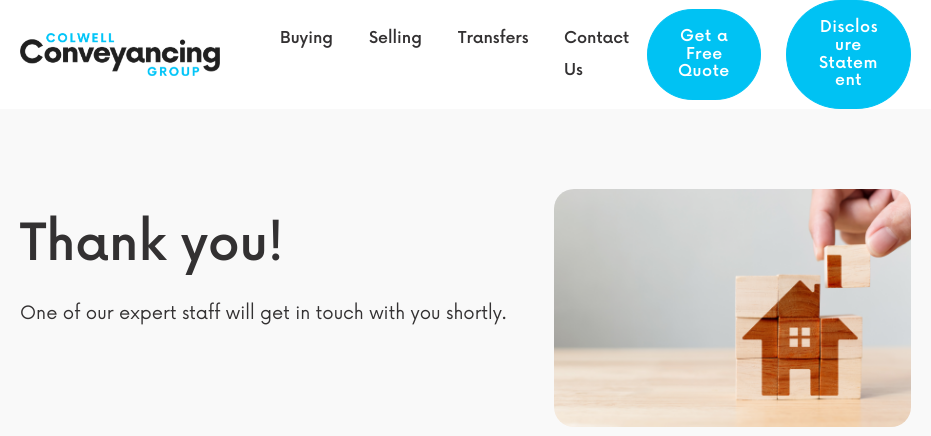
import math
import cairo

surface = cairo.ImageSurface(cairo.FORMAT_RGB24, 931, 436)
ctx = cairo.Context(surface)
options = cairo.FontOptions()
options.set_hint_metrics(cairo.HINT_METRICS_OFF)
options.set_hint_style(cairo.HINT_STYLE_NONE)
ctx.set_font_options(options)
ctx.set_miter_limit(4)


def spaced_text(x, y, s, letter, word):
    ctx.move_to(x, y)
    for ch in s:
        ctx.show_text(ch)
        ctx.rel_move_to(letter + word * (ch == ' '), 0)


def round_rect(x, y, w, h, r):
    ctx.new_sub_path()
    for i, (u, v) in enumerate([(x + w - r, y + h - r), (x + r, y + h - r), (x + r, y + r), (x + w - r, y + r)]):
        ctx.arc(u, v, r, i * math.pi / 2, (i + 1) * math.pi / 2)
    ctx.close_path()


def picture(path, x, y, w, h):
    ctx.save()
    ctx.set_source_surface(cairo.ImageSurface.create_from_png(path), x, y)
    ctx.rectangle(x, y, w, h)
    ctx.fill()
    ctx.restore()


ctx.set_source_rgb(1, 1, 1)
ctx.paint()
picture("img1.png", 20, 33, 200, 43)
ctx.select_font_face("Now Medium")
ctx.set_font_size(16)
ctx.set_source_rgb(0.2, 0.192, 0.196)
ctx.move_to(280, 43)
ctx.show_text("Buying")
ctx.move_to(369, 43)
ctx.show_text("Selling")
ctx.move_to(458, 43)
ctx.show_text("Transfers")
ctx.move_to(564, 43)
ctx.show_text("Contact")
ctx.move_to(564, 75)
ctx.show_text("Us")
ctx.set_source_rgb(0, 0.761, 0.953)
round_rect(647.5, 9.5, 113, 90, 45)
ctx.fill_preserve()
ctx.set_line_width(1)
ctx.stroke()
ctx.set_source_rgb(1, 1, 1)
spaced_text(680, 41, "Get a", 0.5, 0)
spaced_text(686, 59, "Free", 0.5, 0)
spaced_text(678, 76, "Quote", 0.5, 0)
ctx.set_source_rgb(0, 0.761, 0.953)
round_rect(786.5, 0.5, 124, 108, 54)
ctx.fill_preserve()
ctx.stroke()
ctx.set_source_rgb(1, 1, 1)
spaced_text(820, 32, "Disclos", 0.5, 0)
spaced_text(835, 50, "ure", 0.5, 0)
spaced_text(819, 68, "Statem", 0.5, 0)
spaced_text(835, 85, "ent", 0.5, 0)
ctx.set_source_rgb(0.973, 0.973, 0.973)
ctx.rectangle(0, 109, 931, 327)
ctx.fill()
ctx.set_font_size(50)
ctx.set_source_rgb(0.2, 0.192, 0.196)
ctx.move_to(20, 260)
ctx.show_text("Thank you!")
ctx.select_font_face("Now")
ctx.set_font_size(18)
ctx.move_to(20, 319)
ctx.show_text("One of our expert staff will get in touch with you shortly.")
picture("img2.png", 554, 189, 357, 238)
surface.write_to_png("page.png")
